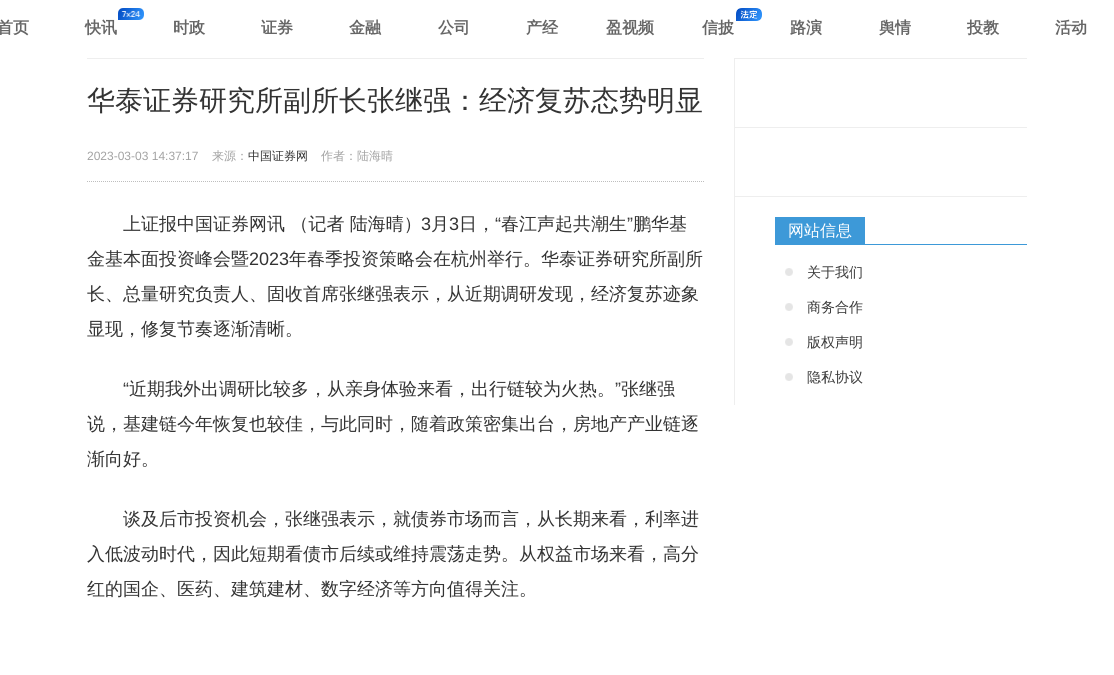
import math
import cairo

surface = cairo.ImageSurface(cairo.FORMAT_RGB24, 1114, 675)
ctx = cairo.Context(surface)
options = cairo.FontOptions()
options.set_hint_metrics(cairo.HINT_METRICS_OFF)
options.set_hint_style(cairo.HINT_STYLE_NONE)
ctx.set_font_options(options)
ctx.set_miter_limit(4)


def picture(path, x, y, w, h):
    ctx.save()
    ctx.set_source_surface(cairo.ImageSurface.create_from_png(path), x, y)
    ctx.rectangle(x, y, w, h)
    ctx.fill()
    ctx.restore()


ctx.set_source_rgb(1, 1, 1)
ctx.paint()
ctx.select_font_face("WenQuanYi Zen Hei", cairo.FONT_SLANT_NORMAL, cairo.FONT_WEIGHT_BOLD)
ctx.set_font_size(16)
ctx.set_source_rgb(0.4, 0.4, 0.4)
ctx.move_to(-3, 33)
ctx.show_text("首页")
picture("img1.png", 118, 8, 26, 12)
ctx.move_to(85, 33)
ctx.show_text("快讯")
ctx.move_to(173, 33)
ctx.show_text("时政")
ctx.move_to(261, 33)
ctx.show_text("证券")
ctx.move_to(349, 33)
ctx.show_text("金融")
ctx.move_to(438, 33)
ctx.show_text("公司")
ctx.move_to(526, 33)
ctx.show_text("产经")
ctx.move_to(606, 33)
ctx.show_text("盈视频")
picture("img2.png", 736, 8, 26, 13)
ctx.move_to(702, 33)
ctx.show_text("信披")
ctx.move_to(790, 33)
ctx.show_text("路演")
ctx.move_to(879, 33)
ctx.show_text("舆情")
ctx.move_to(967, 33)
ctx.show_text("投教")
ctx.move_to(1055, 33)
ctx.show_text("活动")
ctx.set_source_rgb(0.933, 0.933, 0.933)
ctx.rectangle(87, 58, 617, 1)
ctx.fill()
ctx.select_font_face("WenQuanYi Zen Hei Medium")
ctx.set_font_size(28)
ctx.set_source_rgb(0.2, 0.2, 0.2)
ctx.move_to(87, 110)
ctx.show_text("华泰证券研究所副所长张继强：经济复苏态势明显")
ctx.select_font_face("Liberation Sans")
ctx.set_font_size(12)
ctx.set_source_rgb(0.635, 0.635, 0.635)
ctx.move_to(87, 160)
ctx.show_text("2023-03-03 14:37:17")
ctx.select_font_face("WenQuanYi Zen Hei Medium")
ctx.move_to(212, 160)
ctx.show_text("来源：")
ctx.set_source_rgb(0.2, 0.2, 0.2)
ctx.move_to(248, 160)
ctx.show_text("中国证券网")
ctx.set_source_rgb(0.635, 0.635, 0.635)
ctx.move_to(321, 160)
ctx.show_text("作者：陆海晴")
ctx.new_path()
ctx.move_to(87, 181.5)
ctx.line_to(704, 181.5)
ctx.set_source_rgb(0.745, 0.745, 0.745)
ctx.set_line_width(1)
ctx.set_dash([1, 1])
ctx.stroke()
ctx.set_font_size(18)
ctx.set_source_rgb(0.2, 0.2, 0.2)
ctx.move_to(123, 230)
ctx.show_text("上证报中国证券网讯 （记者 陆海晴）")
ctx.select_font_face("Liberation Sans")
ctx.move_to(421, 230)
ctx.show_text("3")
ctx.select_font_face("WenQuanYi Zen Hei Medium")
ctx.move_to(431, 230)
ctx.show_text("月")
ctx.select_font_face("Liberation Sans")
ctx.move_to(449, 230)
ctx.show_text("3")
ctx.select_font_face("WenQuanYi Zen Hei Medium")
ctx.move_to(459, 230)
ctx.show_text("日，")
ctx.select_font_face("Liberation Sans")
ctx.move_to(495, 230)
ctx.show_text("“")
ctx.select_font_face("WenQuanYi Zen Hei Medium")
ctx.move_to(501, 230)
ctx.show_text("春江声起共潮生")
ctx.select_font_face("Liberation Sans")
ctx.move_to(627, 230)
ctx.show_text("”")
ctx.select_font_face("WenQuanYi Zen Hei Medium")
ctx.move_to(633, 230)
ctx.show_text("鹏华基")
ctx.move_to(87, 265)
ctx.show_text("金基本面投资峰会暨")
ctx.select_font_face("Liberation Sans")
ctx.move_to(249, 265)
ctx.show_text("2023")
ctx.select_font_face("WenQuanYi Zen Hei Medium")
ctx.move_to(289, 265)
ctx.show_text("年春季投资策略会在杭州举行。华泰证券研究所副所")
ctx.move_to(87, 300)
ctx.show_text("长、总量研究负责人、固收首席张继强表示，从近期调研发现，经济复苏迹象")
ctx.move_to(87, 335)
ctx.show_text("显现，修复节奏逐渐清晰。")
ctx.select_font_face("Liberation Sans")
ctx.move_to(123, 395)
ctx.show_text("“")
ctx.select_font_face("WenQuanYi Zen Hei Medium")
ctx.move_to(129, 395)
ctx.show_text("近期我外出调研比较多，从亲身体验来看，出行链较为火热。")
ctx.select_font_face("Liberation Sans")
ctx.move_to(615, 395)
ctx.show_text("”")
ctx.select_font_face("WenQuanYi Zen Hei Medium")
ctx.move_to(621, 395)
ctx.show_text("张继强")
ctx.move_to(87, 430)
ctx.show_text("说，基建链今年恢复也较佳，与此同时，随着政策密集出台，房地产产业链逐")
ctx.move_to(87, 465)
ctx.show_text("渐向好。")
ctx.move_to(123, 525)
ctx.show_text("谈及后市投资机会，张继强表示，就债券市场而言，从长期来看，利率进")
ctx.move_to(87, 560)
ctx.show_text("入低波动时代，因此短期看债市后续或维持震荡走势。从权益市场来看，高分")
ctx.move_to(87, 595)
ctx.show_text("红的国企、医药、建筑建材、数字经济等方向值得关注。")
ctx.set_source_rgb(0.933, 0.933, 0.933)
ctx.rectangle(734, 58, 1, 347)
ctx.fill()
ctx.rectangle(735, 58, 292, 1)
ctx.fill()
ctx.rectangle(735, 127, 292, 1)
ctx.fill()
ctx.rectangle(735, 196, 292, 1)
ctx.fill()
ctx.set_source_rgb(0.239, 0.6, 0.847)
ctx.rectangle(865, 244, 162, 1)
ctx.fill()
ctx.rectangle(775, 217, 90, 28)
ctx.fill()
ctx.set_font_size(16)
ctx.set_source_rgb(1, 1, 1)
ctx.move_to(788, 236)
ctx.show_text("网站信息")
picture("img3.png", 785, 268, 8, 8)
ctx.set_font_size(14)
ctx.set_source_rgb(0.227, 0.227, 0.227)
ctx.move_to(807, 277)
ctx.show_text("关于我们")
picture("img3.png", 785, 303, 8, 8)
ctx.move_to(807, 312)
ctx.show_text("商务合作")
picture("img3.png", 785, 338, 8, 8)
ctx.move_to(807, 347)
ctx.show_text("版权声明")
picture("img3.png", 785, 373, 8, 8)
ctx.move_to(807, 382)
ctx.show_text("隐私协议")
surface.write_to_png("page.png")
